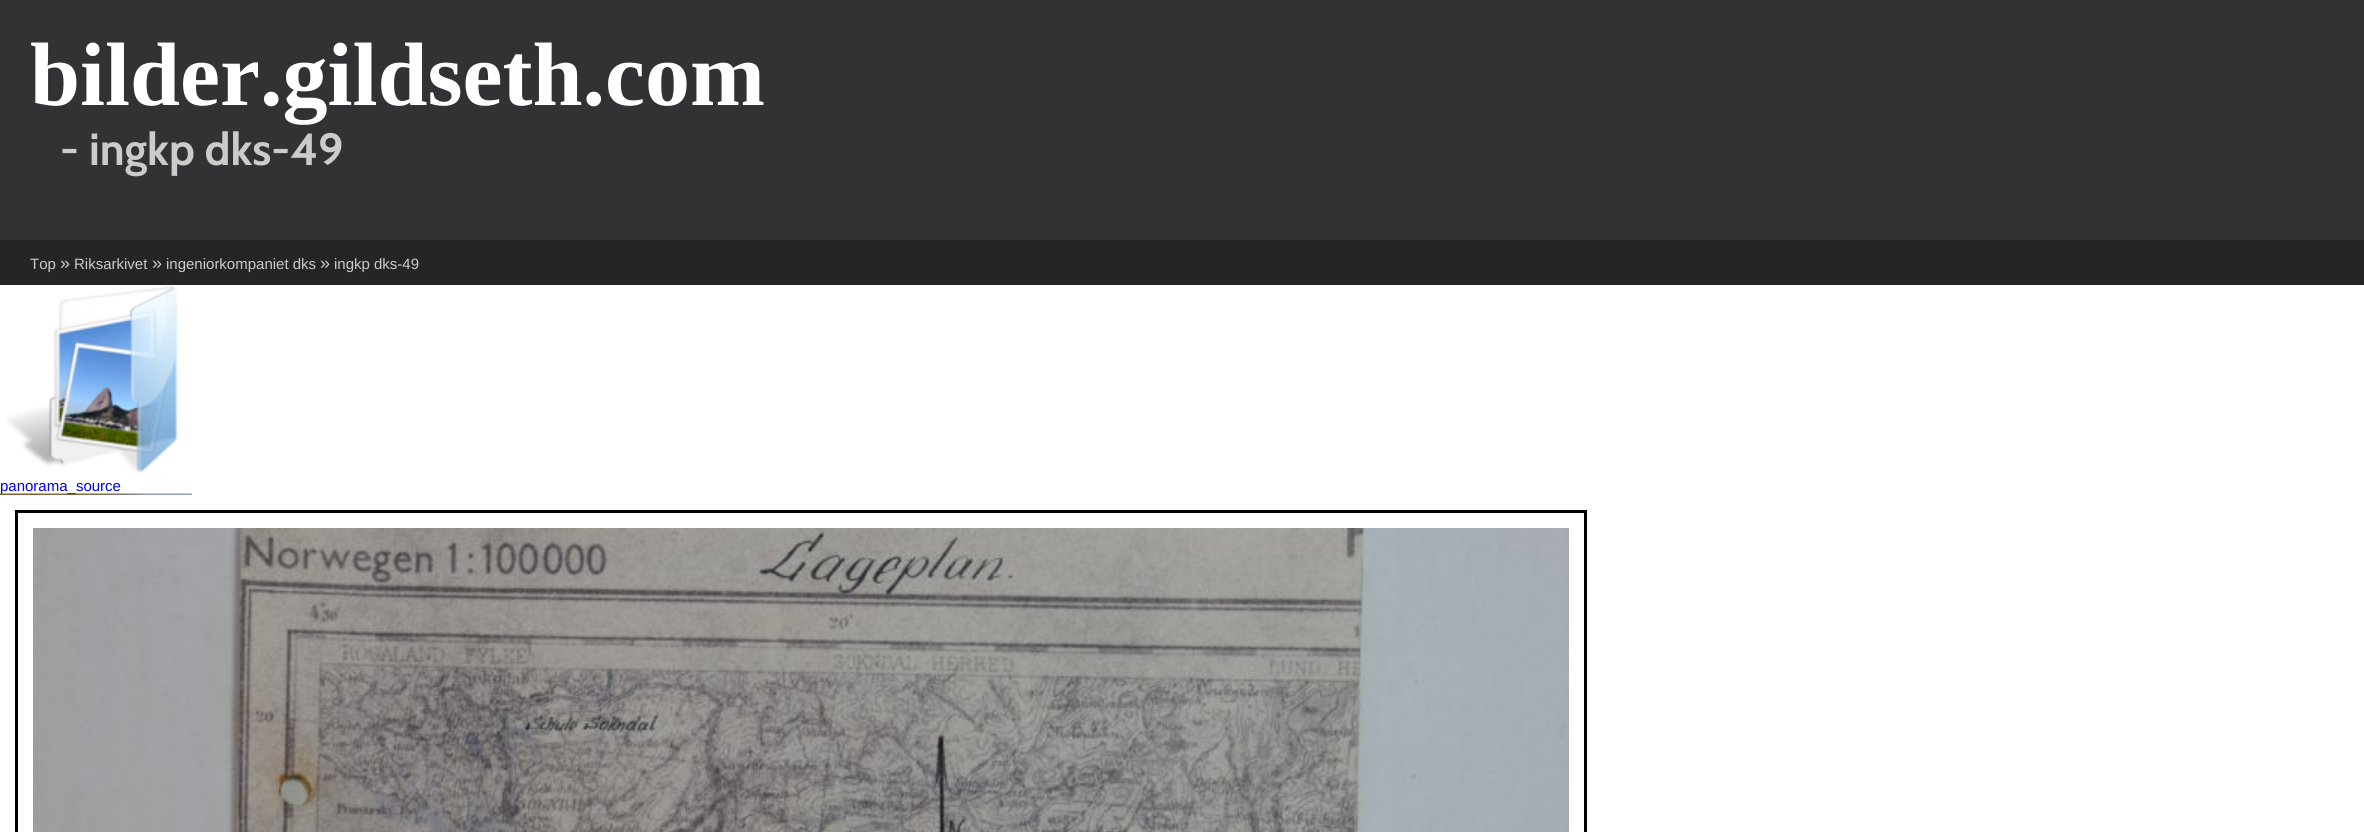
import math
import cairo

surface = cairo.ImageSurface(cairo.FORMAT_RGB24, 2364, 832)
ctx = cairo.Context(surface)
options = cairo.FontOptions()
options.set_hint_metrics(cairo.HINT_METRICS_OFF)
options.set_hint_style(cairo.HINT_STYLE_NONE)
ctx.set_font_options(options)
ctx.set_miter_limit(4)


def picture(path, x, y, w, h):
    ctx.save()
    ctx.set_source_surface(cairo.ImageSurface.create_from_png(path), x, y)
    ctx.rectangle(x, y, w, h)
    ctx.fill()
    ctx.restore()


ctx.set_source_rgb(0.188, 0.196, 0.2)
ctx.paint()
ctx.select_font_face("Liberation Serif", cairo.FONT_SLANT_NORMAL, cairo.FONT_WEIGHT_BOLD)
ctx.set_font_size(90)
ctx.set_source_rgb(1, 1, 1)
ctx.move_to(30, 105)
ctx.show_text("bilder.gildseth.com")
ctx.select_font_face("Cabin", cairo.FONT_SLANT_NORMAL, cairo.FONT_WEIGHT_BOLD)
ctx.set_font_size(45)
ctx.set_source_rgb(0.796, 0.796, 0.796)
ctx.move_to(60, 165)
ctx.show_text("- ingkp dks-49")
ctx.set_source_rgb(0.141, 0.145, 0.149)
ctx.rectangle(0, 240, 2364, 45)
ctx.fill()
ctx.select_font_face("Liberation Sans")
ctx.set_font_size(15)
ctx.set_source_rgb(0.796, 0.796, 0.796)
ctx.move_to(30, 269)
ctx.show_text("Top")
ctx.set_font_size(18)
ctx.move_to(60, 269)
ctx.show_text("»")
ctx.set_font_size(15)
ctx.move_to(74, 269)
ctx.show_text("Riksarkivet")
ctx.set_font_size(18)
ctx.move_to(152, 269)
ctx.show_text("»")
ctx.set_font_size(15)
ctx.move_to(166, 269)
ctx.show_text("ingeniorkompaniet dks")
ctx.set_font_size(18)
ctx.move_to(320, 269)
ctx.show_text("»")
ctx.set_font_size(15)
ctx.move_to(334, 269)
ctx.show_text("ingkp dks-49")
ctx.set_source_rgb(1, 1, 1)
ctx.rectangle(0, 285, 2364, 547)
ctx.fill()
picture("img1.png", 6, 285, 172, 188)
ctx.set_source_rgb(0, 0, 0.933)
ctx.move_to(0, 491)
ctx.show_text("panorama_source")
picture("img2.png", 0, 493, 192, 2)
ctx.rectangle(16.5, 511.5, 1569, 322)
ctx.set_source_rgb(0, 0, 0)
ctx.set_line_width(3)
ctx.stroke()
picture("img3.png", 33, 528, 1536, 304)
surface.write_to_png("page.png")
